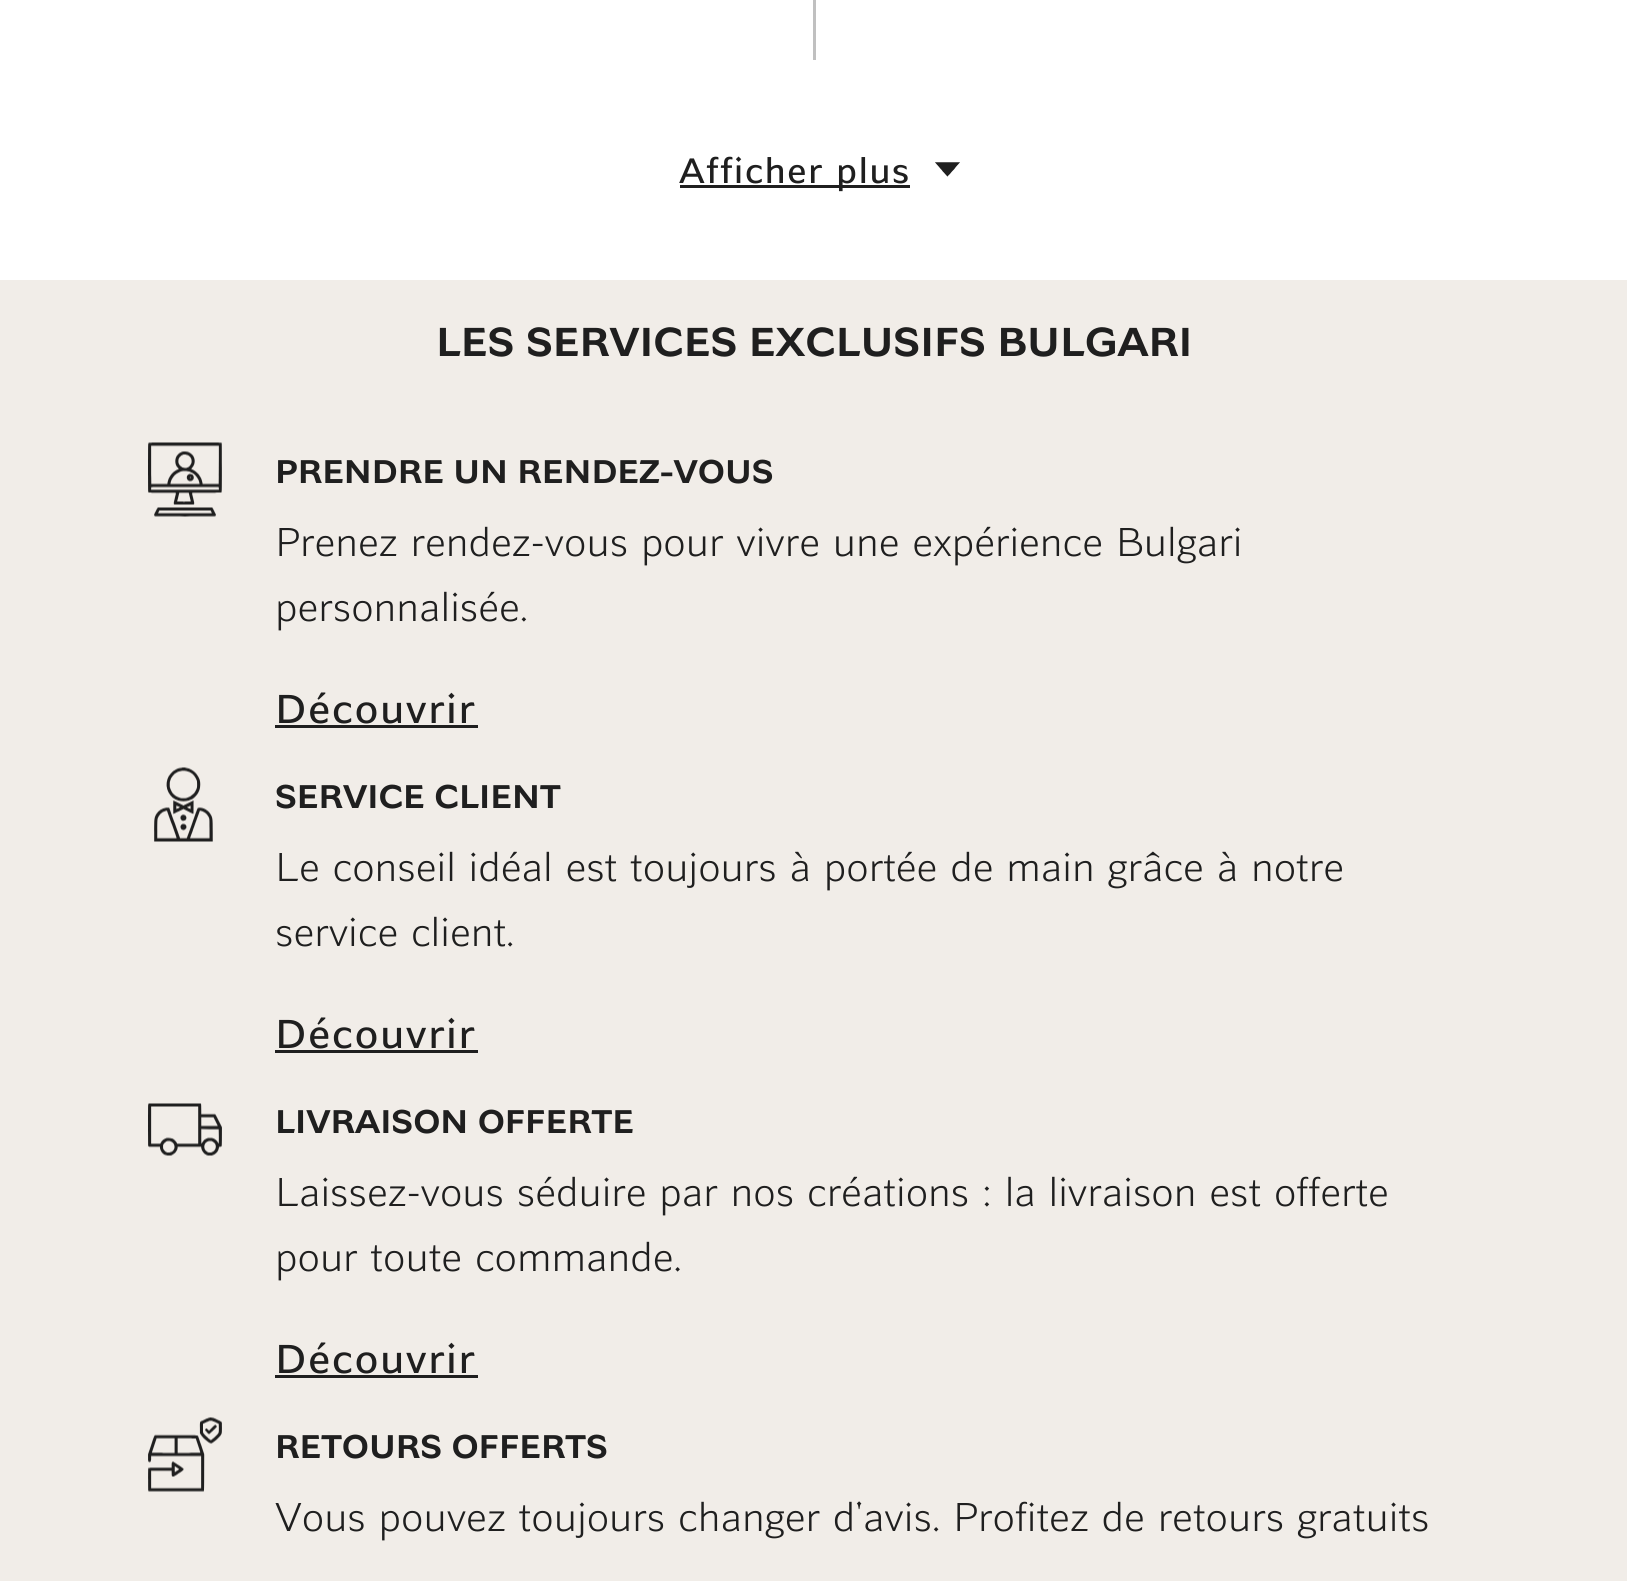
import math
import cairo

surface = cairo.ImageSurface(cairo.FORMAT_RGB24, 1627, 1581)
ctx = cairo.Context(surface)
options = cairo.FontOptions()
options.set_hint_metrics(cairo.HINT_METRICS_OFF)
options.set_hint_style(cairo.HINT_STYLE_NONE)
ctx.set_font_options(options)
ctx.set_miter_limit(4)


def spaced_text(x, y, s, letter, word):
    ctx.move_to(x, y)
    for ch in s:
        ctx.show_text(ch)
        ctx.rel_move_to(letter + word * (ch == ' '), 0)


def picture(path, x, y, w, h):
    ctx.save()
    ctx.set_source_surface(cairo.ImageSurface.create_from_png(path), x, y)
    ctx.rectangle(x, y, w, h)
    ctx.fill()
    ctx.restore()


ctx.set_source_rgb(1, 1, 1)
ctx.paint()
ctx.set_source_rgb(0.753, 0.753, 0.753)
ctx.rectangle(813, 0, 3, 60)
ctx.fill()
ctx.set_source_rgb(0.122, 0.122, 0.122)
ctx.rectangle(680, 185, 230, 3)
ctx.fill()
ctx.select_font_face("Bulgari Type")
ctx.set_font_size(35)
spaced_text(679, 183, "Afficher plus", 1.75, 0)
picture("img1.png", 935, 162, 25, 15)
ctx.set_source_rgb(0.945, 0.929, 0.91)
ctx.rectangle(0, 280, 1627, 1301)
ctx.fill()
ctx.select_font_face("Bulgari Type", cairo.FONT_SLANT_NORMAL, cairo.FONT_WEIGHT_BOLD)
ctx.set_font_size(40)
ctx.set_source_rgb(0.122, 0.122, 0.122)
ctx.move_to(436, 356)
ctx.show_text("LES SERVICES EXCLUSIFS BULGARI")
picture("img2.png", 148, 442, 74, 75)
ctx.set_font_size(32.5)
ctx.move_to(275, 483)
ctx.show_text("PRENDRE UN RENDEZ-VOUS")
ctx.select_font_face("Bulgari Type Light")
ctx.set_font_size(40)
ctx.move_to(275, 556)
ctx.show_text("Prenez rendez-vous pour vivre une expérience Bulgari")
ctx.move_to(275, 621)
ctx.show_text("personnalisée.")
ctx.select_font_face("Bulgari Type")
spaced_text(275, 723, "Découvrir", 2, 0)
ctx.rectangle(275, 725, 203, 3)
ctx.fill()
picture("img3.png", 154, 767, 59, 75)
ctx.select_font_face("Bulgari Type", cairo.FONT_SLANT_NORMAL, cairo.FONT_WEIGHT_BOLD)
ctx.set_font_size(32.5)
ctx.move_to(275, 808)
ctx.show_text("SERVICE CLIENT")
ctx.select_font_face("Bulgari Type Light")
ctx.set_font_size(40)
ctx.move_to(275, 881)
ctx.show_text("Le conseil idéal est toujours à portée de main grâce à notre")
ctx.move_to(275, 946)
ctx.show_text("service client.")
ctx.select_font_face("Bulgari Type")
spaced_text(275, 1048, "Découvrir", 2, 0)
ctx.rectangle(275, 1050, 203, 3)
ctx.fill()
picture("img4.png", 148, 1103, 74, 53)
ctx.select_font_face("Bulgari Type", cairo.FONT_SLANT_NORMAL, cairo.FONT_WEIGHT_BOLD)
ctx.set_font_size(32.5)
ctx.move_to(275, 1133)
ctx.show_text("LIVRAISON OFFERTE")
ctx.select_font_face("Bulgari Type Light")
ctx.set_font_size(40)
ctx.move_to(275, 1206)
ctx.show_text("Laissez-vous séduire par nos créations : la livraison est offerte")
ctx.move_to(275, 1271)
ctx.show_text("pour toute commande.")
ctx.select_font_face("Bulgari Type")
spaced_text(275, 1373, "Découvrir", 2, 0)
ctx.rectangle(275, 1375, 203, 3)
ctx.fill()
picture("img5.png", 148, 1417, 74, 75)
ctx.select_font_face("Bulgari Type", cairo.FONT_SLANT_NORMAL, cairo.FONT_WEIGHT_BOLD)
ctx.set_font_size(32.5)
ctx.move_to(275, 1458)
ctx.show_text("RETOURS OFFERTS")
ctx.select_font_face("Bulgari Type Light")
ctx.set_font_size(40)
ctx.move_to(275, 1531)
ctx.show_text("Vous pouvez toujours changer d'avis. Profitez de retours gratuits")
surface.write_to_png("page.png")
